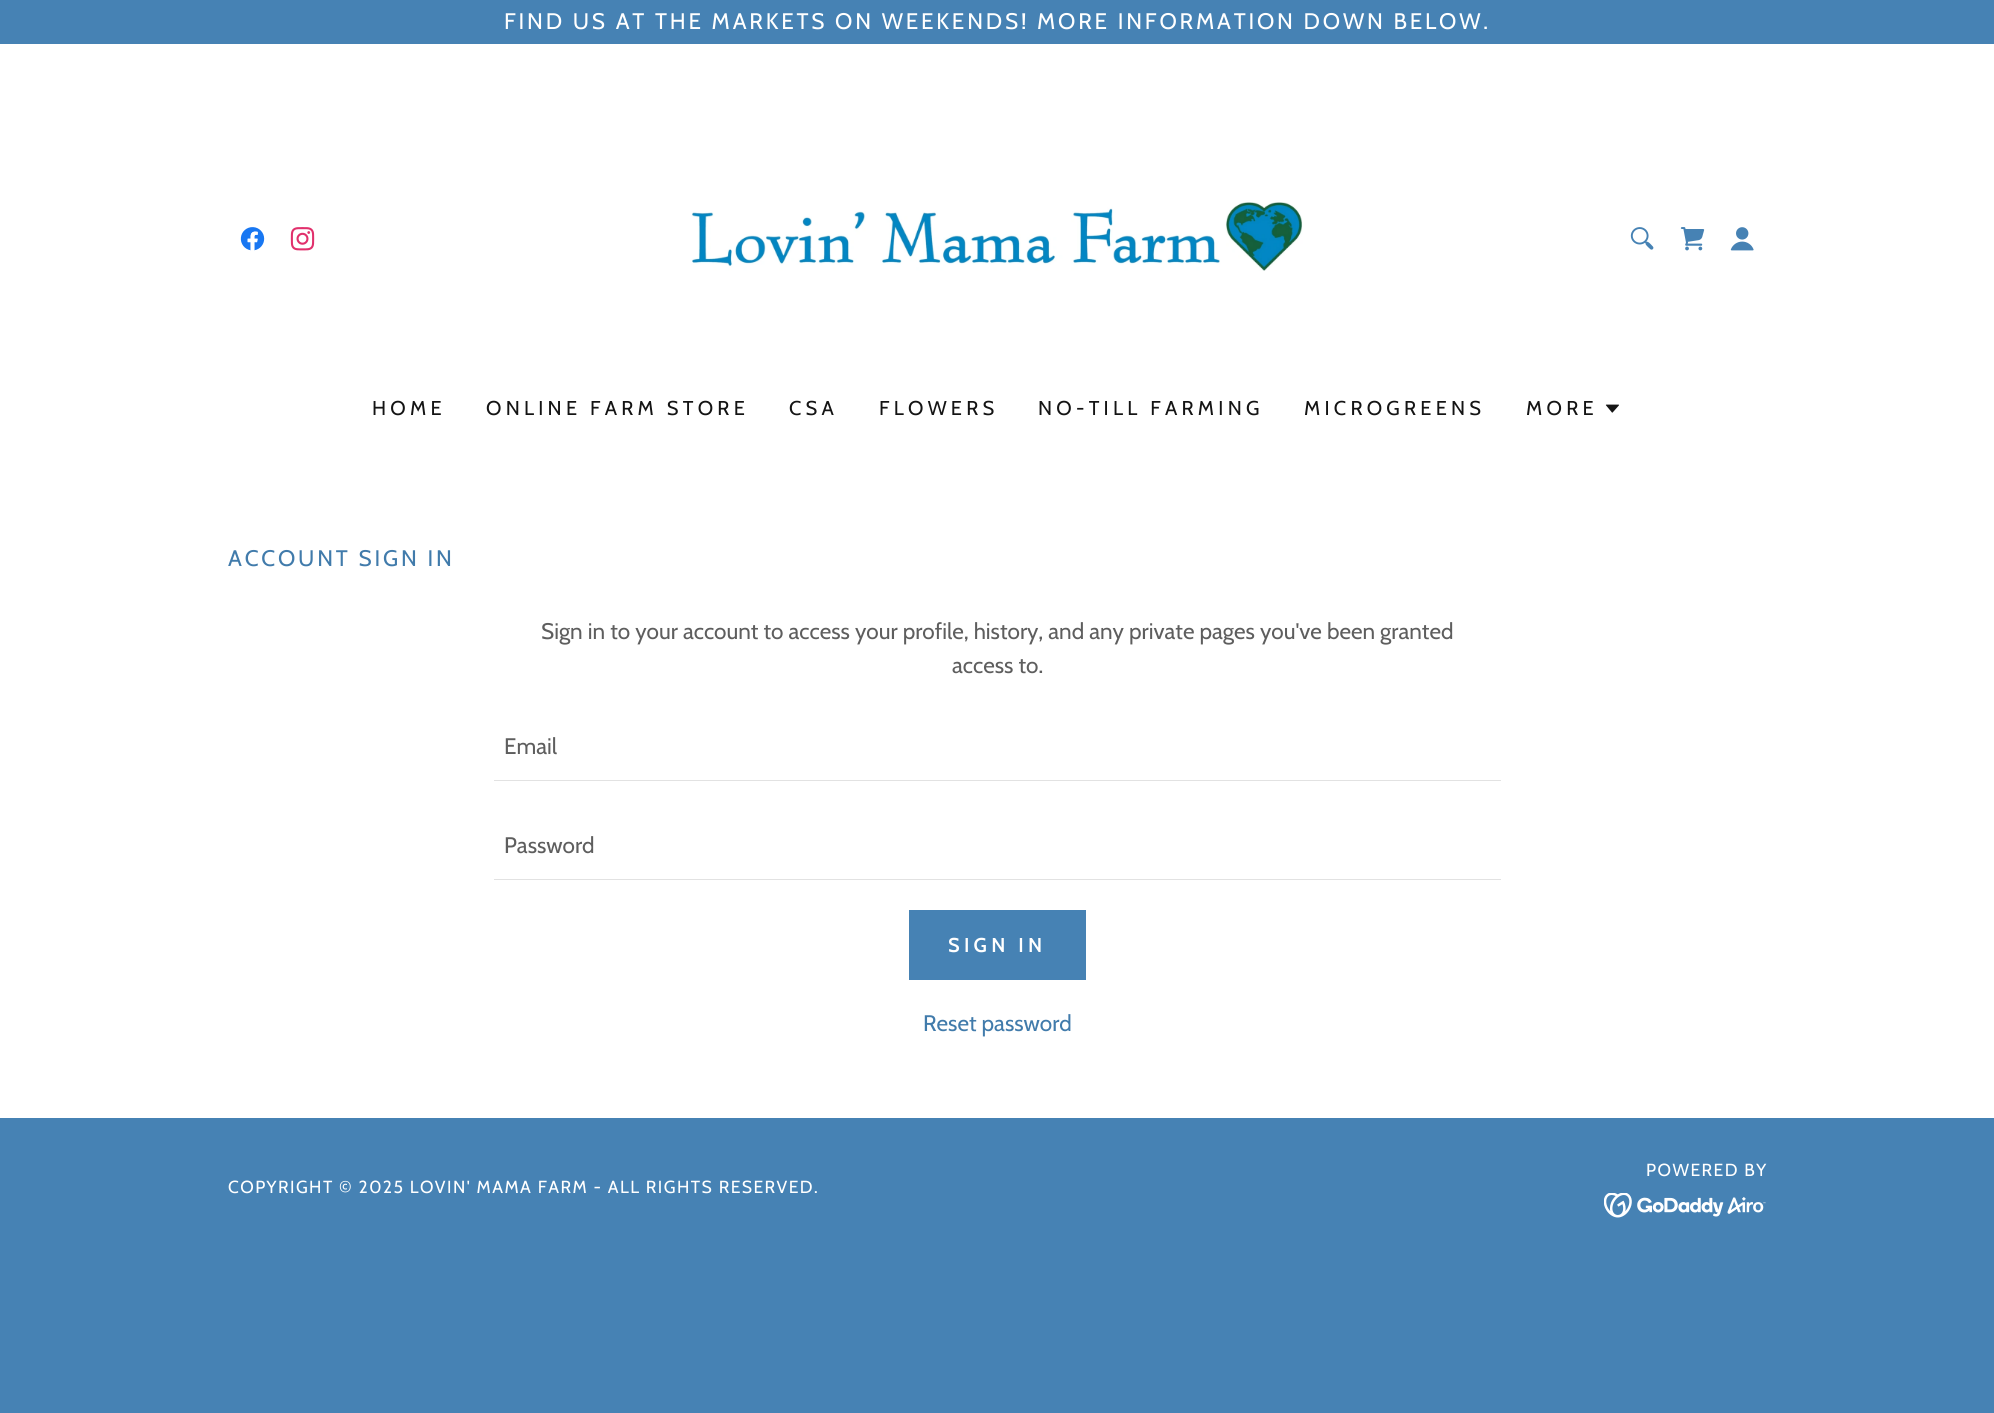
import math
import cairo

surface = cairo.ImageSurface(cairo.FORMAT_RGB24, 1994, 1413)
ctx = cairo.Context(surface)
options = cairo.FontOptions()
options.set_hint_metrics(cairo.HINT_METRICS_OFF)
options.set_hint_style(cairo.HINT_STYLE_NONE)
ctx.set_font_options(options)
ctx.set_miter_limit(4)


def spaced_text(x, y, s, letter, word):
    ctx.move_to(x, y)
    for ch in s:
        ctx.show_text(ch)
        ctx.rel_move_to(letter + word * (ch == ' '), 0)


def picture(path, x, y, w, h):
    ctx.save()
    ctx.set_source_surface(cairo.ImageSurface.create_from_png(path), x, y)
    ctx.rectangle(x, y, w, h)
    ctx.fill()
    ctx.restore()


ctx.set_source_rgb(0.275, 0.51, 0.706)
ctx.paint()
ctx.set_source_rgb(1, 1, 1)
ctx.rectangle(0, 44, 1994, 1074)
ctx.fill()
ctx.select_font_face("Cabin")
ctx.set_font_size(22.5)
spaced_text(504, 29, "FIND US AT THE MARKETS ON WEEKENDS! MORE INFORMATION DOWN BELOW.", 2.8, 0)
picture("img1.png", 240, 227, 25, 24)
picture("img2.png", 290, 227, 25, 24)
picture("img3.png", 691, 202, 612, 69)
picture("img4.png", 1630, 227, 24, 23)
picture("img5.png", 1680, 227, 25, 24)
picture("img6.png", 1730, 227, 24, 24)
ctx.set_font_size(20)
ctx.set_source_rgb(0.082, 0.082, 0.082)
spaced_text(372, 415, "HOME", 4.25, 0)
spaced_text(486, 415, "ONLINE FARM STORE", 4.25, 0)
spaced_text(789, 415, "CSA", 4.25, 0)
spaced_text(879, 415, "FLOWERS", 4.25, 0)
spaced_text(1038, 415, "NO-TILL FARMING", 4.25, 0)
spaced_text(1304, 415, "MICROGREENS", 4.25, 0)
spaced_text(1526, 415, "MORE", 4.25, 0)
picture("img7.png", 1605, 404, 14, 9)
ctx.set_font_size(22.5)
ctx.set_source_rgb(0.255, 0.482, 0.671)
spaced_text(228, 566, "ACCOUNT SIGN IN", 2.8, 0)
ctx.set_source_rgb(0.369, 0.369, 0.369)
ctx.move_to(541, 639)
ctx.show_text("Sign in to your account to access your profile, history, and any private pages you've been granted")
ctx.move_to(952, 673)
ctx.show_text("access to.")
ctx.set_source_rgb(0.886, 0.886, 0.886)
ctx.rectangle(494, 780, 1007, 1)
ctx.fill()
ctx.set_source_rgb(0.369, 0.369, 0.369)
ctx.move_to(504, 754)
ctx.show_text("Email")
ctx.set_source_rgb(0.886, 0.886, 0.886)
ctx.rectangle(494, 879, 1007, 1)
ctx.fill()
ctx.set_source_rgb(0.369, 0.369, 0.369)
ctx.move_to(504, 853)
ctx.show_text("Password")
ctx.set_source_rgb(0.275, 0.51, 0.706)
ctx.rectangle(909, 910, 177, 70)
ctx.fill()
ctx.select_font_face("Cabin SemiBold")
ctx.set_font_size(20)
ctx.set_source_rgb(1, 1, 1)
spaced_text(948, 952, "SIGN IN", 4.25, 0)
ctx.select_font_face("Cabin")
ctx.set_font_size(22.5)
ctx.set_source_rgb(0.255, 0.482, 0.671)
ctx.move_to(923, 1031)
ctx.show_text("Reset password")
ctx.set_font_size(17.5)
ctx.set_source_rgb(1, 1, 1)
spaced_text(1646, 1176, "POWERED BY", 1.45, 0)
picture("img8.png", 1604, 1193, 162, 25)
spaced_text(228, 1193, "COPYRIGHT © 2025 LOVIN' MAMA FARM - ALL RIGHTS RESERVED.", 1.45, 0)
surface.write_to_png("page.png")
